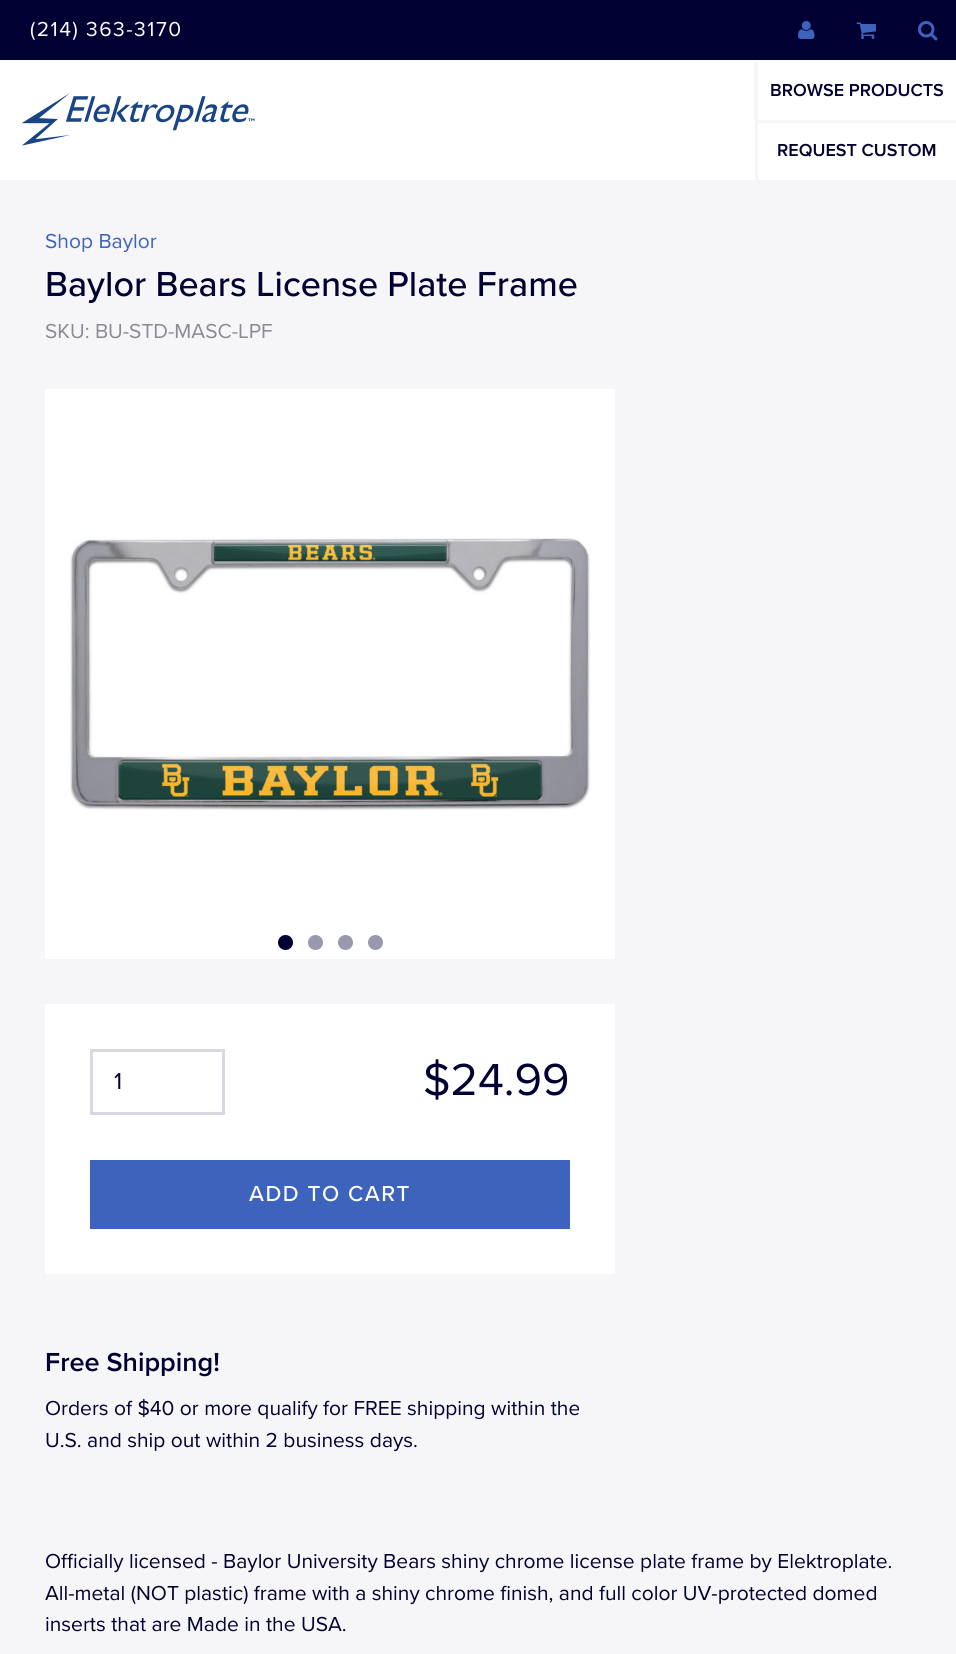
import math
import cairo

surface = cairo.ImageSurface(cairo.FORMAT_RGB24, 956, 1654)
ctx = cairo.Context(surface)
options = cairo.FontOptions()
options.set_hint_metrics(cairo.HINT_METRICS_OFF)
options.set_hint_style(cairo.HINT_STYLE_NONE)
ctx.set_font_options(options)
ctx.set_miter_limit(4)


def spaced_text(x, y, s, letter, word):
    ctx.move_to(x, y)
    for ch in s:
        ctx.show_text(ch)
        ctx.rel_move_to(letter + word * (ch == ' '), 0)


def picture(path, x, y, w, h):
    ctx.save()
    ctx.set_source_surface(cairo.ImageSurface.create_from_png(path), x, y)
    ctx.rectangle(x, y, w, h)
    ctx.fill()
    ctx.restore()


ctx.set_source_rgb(0.961, 0.961, 0.969)
ctx.paint()
ctx.set_source_rgb(0, 0, 0.2)
ctx.rectangle(0, 0, 956, 60)
ctx.fill()
ctx.select_font_face("Proxima Nova")
ctx.set_font_size(21)
ctx.set_source_rgb(1, 1, 1)
spaced_text(30, 36, "(214) 363-3170", 1.5, 0)
picture("img1.png", 798, 21, 17, 18)
picture("img2.png", 856, 22, 20, 17)
picture("img3.png", 918, 21, 20, 20)
ctx.rectangle(0, 60, 956, 120)
ctx.fill()
picture("img4.png", 21, 93, 234, 53)
ctx.set_source_rgb(0.961, 0.961, 0.969)
ctx.new_path()
ctx.move_to(754, 120)
ctx.line_to(754, 60)
ctx.line_to(758, 63)
ctx.line_to(758, 120)
ctx.close_path()
ctx.fill()
ctx.select_font_face("Proxima Nova SemiBold")
ctx.set_font_size(18)
ctx.set_source_rgb(0, 0, 0.2)
ctx.move_to(770, 96)
ctx.show_text("BROWSE PRODUCTS")
ctx.set_source_rgb(0.961, 0.961, 0.969)
ctx.rectangle(755, 120, 201, 3)
ctx.fill()
ctx.rectangle(755, 120, 3, 60)
ctx.fill()
ctx.set_source_rgb(0, 0, 0.2)
ctx.move_to(777, 156)
ctx.show_text("REQUEST CUSTOM")
ctx.select_font_face("Proxima Nova")
ctx.set_font_size(21)
ctx.set_source_rgb(0.239, 0.388, 0.741)
ctx.move_to(45, 248)
ctx.show_text("Shop Baylor")
ctx.select_font_face("Proxima Nova Medium")
ctx.set_font_size(36)
ctx.set_source_rgb(0, 0, 0.2)
ctx.move_to(45, 296)
ctx.show_text("Baylor Bears License Plate Frame")
ctx.select_font_face("Proxima Nova")
ctx.set_font_size(21)
ctx.set_source_rgb(0.541, 0.541, 0.592)
ctx.move_to(45, 338)
ctx.show_text("SKU: BU-STD-MASC-LPF")
ctx.set_source_rgb(1, 1, 1)
ctx.rectangle(45, 389, 570, 570)
ctx.fill()
picture("img5.png", 69, 536, 522, 275)
ctx.set_source_rgb(0, 0, 0.2)
ctx.arc(285.5, 942.5, 7.5, 0, 2 * math.pi)
ctx.fill()
ctx.set_source_rgb(0.6, 0.6, 0.678)
ctx.arc(315.5, 942.5, 7.5, 0, 2 * math.pi)
ctx.fill()
ctx.arc(345.5, 942.5, 7.5, 0, 2 * math.pi)
ctx.fill()
ctx.arc(375.5, 942.5, 7.5, 0, 2 * math.pi)
ctx.fill()
ctx.set_source_rgb(1, 1, 1)
ctx.rectangle(45, 1004, 570, 270)
ctx.fill()
ctx.rectangle(91.5, 1050.5, 132, 63)
ctx.set_source_rgb(0.847, 0.847, 0.89)
ctx.set_line_width(3)
ctx.stroke()
ctx.set_font_size(24)
ctx.set_source_rgb(0, 0, 0.2)
ctx.move_to(114, 1089)
ctx.show_text("1")
ctx.set_font_size(46.5)
ctx.move_to(423, 1095)
ctx.show_text("$24.99")
ctx.set_source_rgb(0.239, 0.388, 0.741)
ctx.rectangle(90, 1160, 480, 69)
ctx.fill()
ctx.select_font_face("Proxima Nova Medium")
ctx.set_font_size(22.5)
ctx.set_source_rgb(1, 1, 1)
spaced_text(249, 1201, "ADD TO CART", 1.5, 0)
ctx.select_font_face("Proxima Nova SemiBold")
ctx.set_font_size(27)
ctx.set_source_rgb(0, 0, 0.2)
ctx.move_to(45, 1371)
ctx.show_text("Free Shipping!")
ctx.select_font_face("Proxima Nova")
ctx.set_font_size(21)
ctx.move_to(45, 1415)
ctx.show_text("Orders of $40 or more qualify for FREE shipping within the")
ctx.move_to(45, 1447)
ctx.show_text("U.S. and ship out within 2 business days.")
ctx.move_to(45, 1568)
ctx.show_text("Officially licensed - Baylor University Bears shiny chrome license plate frame by Elektroplate.")
ctx.move_to(45, 1600)
ctx.show_text("All-metal (NOT plastic) frame with a shiny chrome finish, and full color UV-protected domed")
ctx.move_to(45, 1631)
ctx.show_text("inserts that are Made in the USA.")
surface.write_to_png("page.png")
